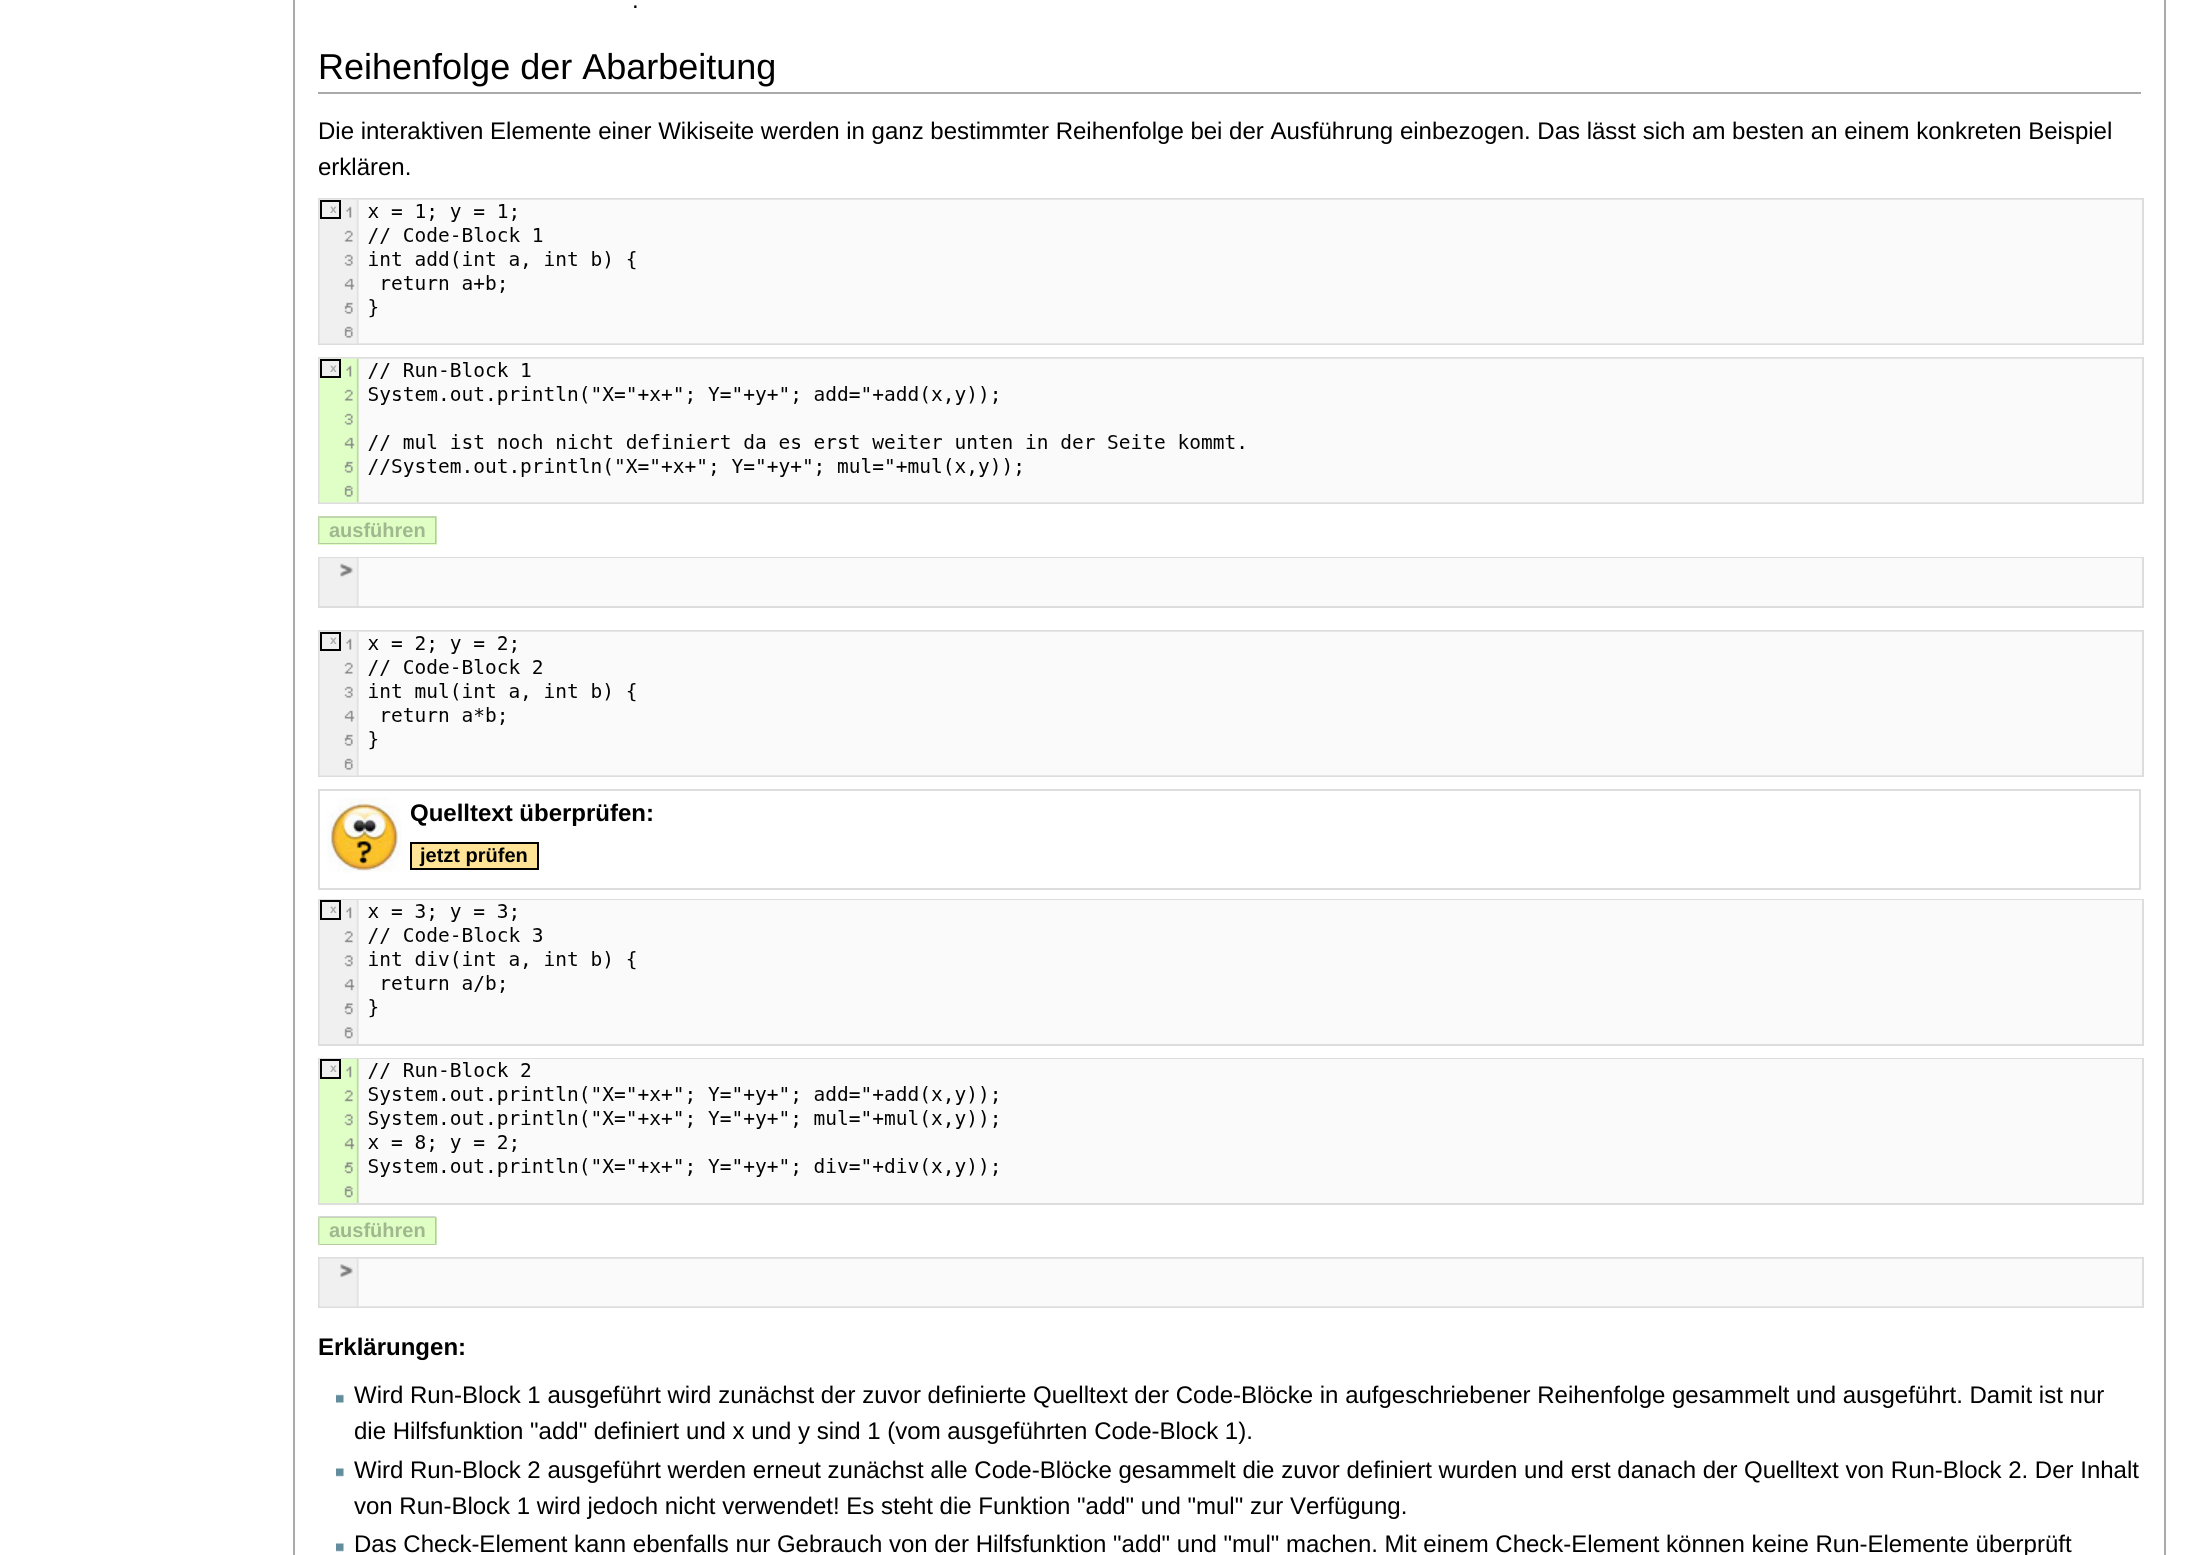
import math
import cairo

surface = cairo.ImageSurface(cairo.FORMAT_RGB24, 2188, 1555)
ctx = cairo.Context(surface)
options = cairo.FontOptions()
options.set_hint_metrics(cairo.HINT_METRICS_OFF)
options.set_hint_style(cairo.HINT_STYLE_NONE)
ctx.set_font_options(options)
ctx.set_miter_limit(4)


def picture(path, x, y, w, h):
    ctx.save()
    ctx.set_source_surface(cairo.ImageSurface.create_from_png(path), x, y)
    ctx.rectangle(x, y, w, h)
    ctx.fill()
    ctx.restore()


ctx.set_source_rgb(1, 1, 1)
ctx.paint()
ctx.rectangle(294, -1, 1871, 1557)
ctx.set_source_rgb(0.667, 0.667, 0.667)
ctx.stroke()
ctx.select_font_face("Liberation Sans")
ctx.set_font_size(24)
ctx.set_source_rgb(0, 0, 0)
ctx.move_to(632, 8)
ctx.show_text(".")
ctx.set_source_rgb(0.667, 0.667, 0.667)
ctx.rectangle(318, 92, 1823, 2)
ctx.fill()
ctx.set_font_size(36)
ctx.set_source_rgb(0, 0, 0)
ctx.move_to(318, 79)
ctx.show_text("Reihenfolge der Abarbeitung")
ctx.set_font_size(24)
ctx.move_to(318, 139)
ctx.show_text("Die interaktiven Elemente einer Wikiseite werden in ganz bestimmter Reihenfolge bei der Ausführung einbezogen. Das lässt sich am besten an einem konkreten Beispiel")
ctx.move_to(318, 175)
ctx.show_text("erklären.")
ctx.rectangle(319, 199, 1824, 145)
ctx.set_source_rgb(0.867, 0.867, 0.867)
ctx.stroke()
picture("img1.png", 319, 199, 1823, 145)
ctx.rectangle(321, 201, 19, 17)
ctx.set_source_rgb(0, 0, 0)
ctx.stroke()
ctx.select_font_face("Liberation Sans", cairo.FONT_SLANT_NORMAL, cairo.FONT_WEIGHT_BOLD)
ctx.set_font_size(12)
ctx.set_source_rgb(0.667, 0.667, 0.667)
ctx.move_to(330, 213)
ctx.show_text("x")
ctx.rectangle(319, 358, 1824, 145)
ctx.set_source_rgb(0.867, 0.867, 0.867)
ctx.stroke()
picture("img2.png", 319, 358, 1823, 145)
ctx.set_source_rgb(0.937, 0.937, 0.937)
ctx.rectangle(321, 360, 19, 17)
ctx.fill_preserve()
ctx.set_source_rgb(0, 0, 0)
ctx.stroke()
ctx.set_source_rgb(0.667, 0.667, 0.667)
ctx.move_to(330, 372)
ctx.show_text("x")
ctx.set_source_rgb(0.875, 1, 0.773)
ctx.rectangle(318, 516, 119, 29)
ctx.fill()
ctx.set_source_rgb(0.753, 0.839, 0.678)
ctx.new_path()
ctx.move_to(318, 516)
ctx.line_to(436, 516)
ctx.line_to(435, 518)
ctx.line_to(320, 518)
ctx.close_path()
ctx.fill()
ctx.set_source_rgba(0.31, 0.31, 0.31, 0.3)
ctx.new_path()
ctx.move_to(436.5, 516)
ctx.line_to(436.5, 544.5)
ctx.line_to(435, 543)
ctx.line_to(435, 517.5)
ctx.close_path()
ctx.fill()
ctx.new_path()
ctx.move_to(436, 544)
ctx.line_to(318, 544)
ctx.line_to(320, 543)
ctx.line_to(435, 543)
ctx.close_path()
ctx.fill()
ctx.set_source_rgba(0.463, 0.463, 0.463, 0.3)
ctx.new_path()
ctx.move_to(318, 544.5)
ctx.line_to(318, 516)
ctx.line_to(319.5, 517.5)
ctx.line_to(319.5, 543)
ctx.close_path()
ctx.fill()
ctx.set_font_size(20)
ctx.set_source_rgb(0.631, 0.718, 0.561)
ctx.move_to(329, 537)
ctx.show_text("ausführen")
ctx.rectangle(319, 558, 1824, 49)
ctx.set_source_rgb(0.867, 0.867, 0.867)
ctx.stroke()
picture("img3.png", 319, 558, 1823, 48)
ctx.rectangle(319, 631, 1824, 145)
ctx.stroke()
picture("img4.png", 319, 631, 1823, 145)
ctx.rectangle(321, 633, 19, 17)
ctx.set_source_rgb(0, 0, 0)
ctx.stroke()
ctx.set_font_size(12)
ctx.set_source_rgb(0.667, 0.667, 0.667)
ctx.move_to(330, 644)
ctx.show_text("x")
ctx.rectangle(319, 790, 1821, 99)
ctx.set_source_rgb(0.867, 0.867, 0.867)
ctx.stroke()
picture("img5.png", 327, 798, 75, 75)
ctx.set_font_size(24)
ctx.set_source_rgb(0, 0, 0)
ctx.move_to(410, 821)
ctx.show_text("Quelltext überprüfen:")
ctx.set_source_rgb(1, 0.89, 0.588)
ctx.rectangle(411, 843, 127, 26)
ctx.fill_preserve()
ctx.set_source_rgb(0, 0, 0)
ctx.stroke()
ctx.set_font_size(20)
ctx.move_to(420, 862)
ctx.show_text("jetzt prüfen")
ctx.rectangle(319, 900, 1824, 145)
ctx.set_source_rgb(0.867, 0.867, 0.867)
ctx.stroke()
picture("img6.png", 319, 900, 1823, 144)
ctx.rectangle(321, 901, 19, 18)
ctx.set_source_rgb(0, 0, 0)
ctx.stroke()
ctx.set_font_size(12)
ctx.set_source_rgb(0.667, 0.667, 0.667)
ctx.move_to(330, 913)
ctx.show_text("x")
ctx.rectangle(319, 1059, 1824, 145)
ctx.set_source_rgb(0.867, 0.867, 0.867)
ctx.stroke()
picture("img7.png", 319, 1059, 1823, 144)
ctx.set_source_rgb(0.937, 0.937, 0.937)
ctx.rectangle(321, 1060, 19, 18)
ctx.fill_preserve()
ctx.set_source_rgb(0, 0, 0)
ctx.stroke()
ctx.set_source_rgb(0.667, 0.667, 0.667)
ctx.move_to(330, 1072)
ctx.show_text("x")
ctx.set_source_rgb(0.875, 1, 0.773)
ctx.rectangle(318, 1217, 119, 28)
ctx.fill()
ctx.set_source_rgba(0.463, 0.463, 0.463, 0.3)
ctx.new_path()
ctx.move_to(318, 1216)
ctx.line_to(436, 1216)
ctx.line_to(435, 1218)
ctx.line_to(320, 1218)
ctx.close_path()
ctx.fill()
ctx.set_source_rgba(0.31, 0.31, 0.31, 0.3)
ctx.new_path()
ctx.move_to(436.5, 1216.5)
ctx.line_to(436.5, 1245)
ctx.line_to(435, 1243.5)
ctx.line_to(435, 1218)
ctx.close_path()
ctx.fill()
ctx.new_path()
ctx.move_to(436, 1245)
ctx.line_to(318, 1245)
ctx.line_to(320, 1244)
ctx.line_to(435, 1244)
ctx.close_path()
ctx.fill()
ctx.set_source_rgba(0.463, 0.463, 0.463, 0.3)
ctx.new_path()
ctx.move_to(318, 1245)
ctx.line_to(318, 1216.5)
ctx.line_to(319.5, 1218)
ctx.line_to(319.5, 1243.5)
ctx.close_path()
ctx.fill()
ctx.set_font_size(20)
ctx.set_source_rgb(0.631, 0.718, 0.561)
ctx.move_to(329, 1237)
ctx.show_text("ausführen")
ctx.rectangle(319, 1258, 1824, 49)
ctx.set_source_rgb(0.867, 0.867, 0.867)
ctx.stroke()
picture("img8.png", 319, 1258, 1823, 49)
ctx.set_font_size(24)
ctx.set_source_rgb(0, 0, 0)
ctx.move_to(318, 1355)
ctx.show_text("Erklärungen:")
picture("img9.png", 336, 1394, 8, 9)
ctx.select_font_face("Liberation Sans")
ctx.move_to(354, 1403)
ctx.show_text("Wird Run-Block 1 ausgeführt wird zunächst der zuvor definierte Quelltext der Code-Blöcke in aufgeschriebener Reihenfolge gesammelt und ausgeführt. Damit ist nur")
ctx.move_to(354, 1439)
ctx.show_text("die Hilfsfunktion \"add\" definiert und x und y sind 1 (vom ausgeführten Code-Block 1).")
picture("img10.png", 336, 1468, 8, 9)
ctx.move_to(354, 1478)
ctx.show_text("Wird Run-Block 2 ausgeführt werden erneut zunächst alle Code-Blöcke gesammelt die zuvor definiert wurden und erst danach der Quelltext von Run-Block 2. Der Inhalt")
ctx.move_to(354, 1514)
ctx.show_text("von Run-Block 1 wird jedoch nicht verwendet! Es steht die Funktion \"add\" und \"mul\" zur Verfügung.")
picture("img10.png", 336, 1543, 8, 9)
ctx.move_to(354, 1552)
ctx.show_text("Das Check-Element kann ebenfalls nur Gebrauch von der Hilfsfunktion \"add\" und \"mul\" machen. Mit einem Check-Element können keine Run-Elemente überprüft")
surface.write_to_png("page.png")
